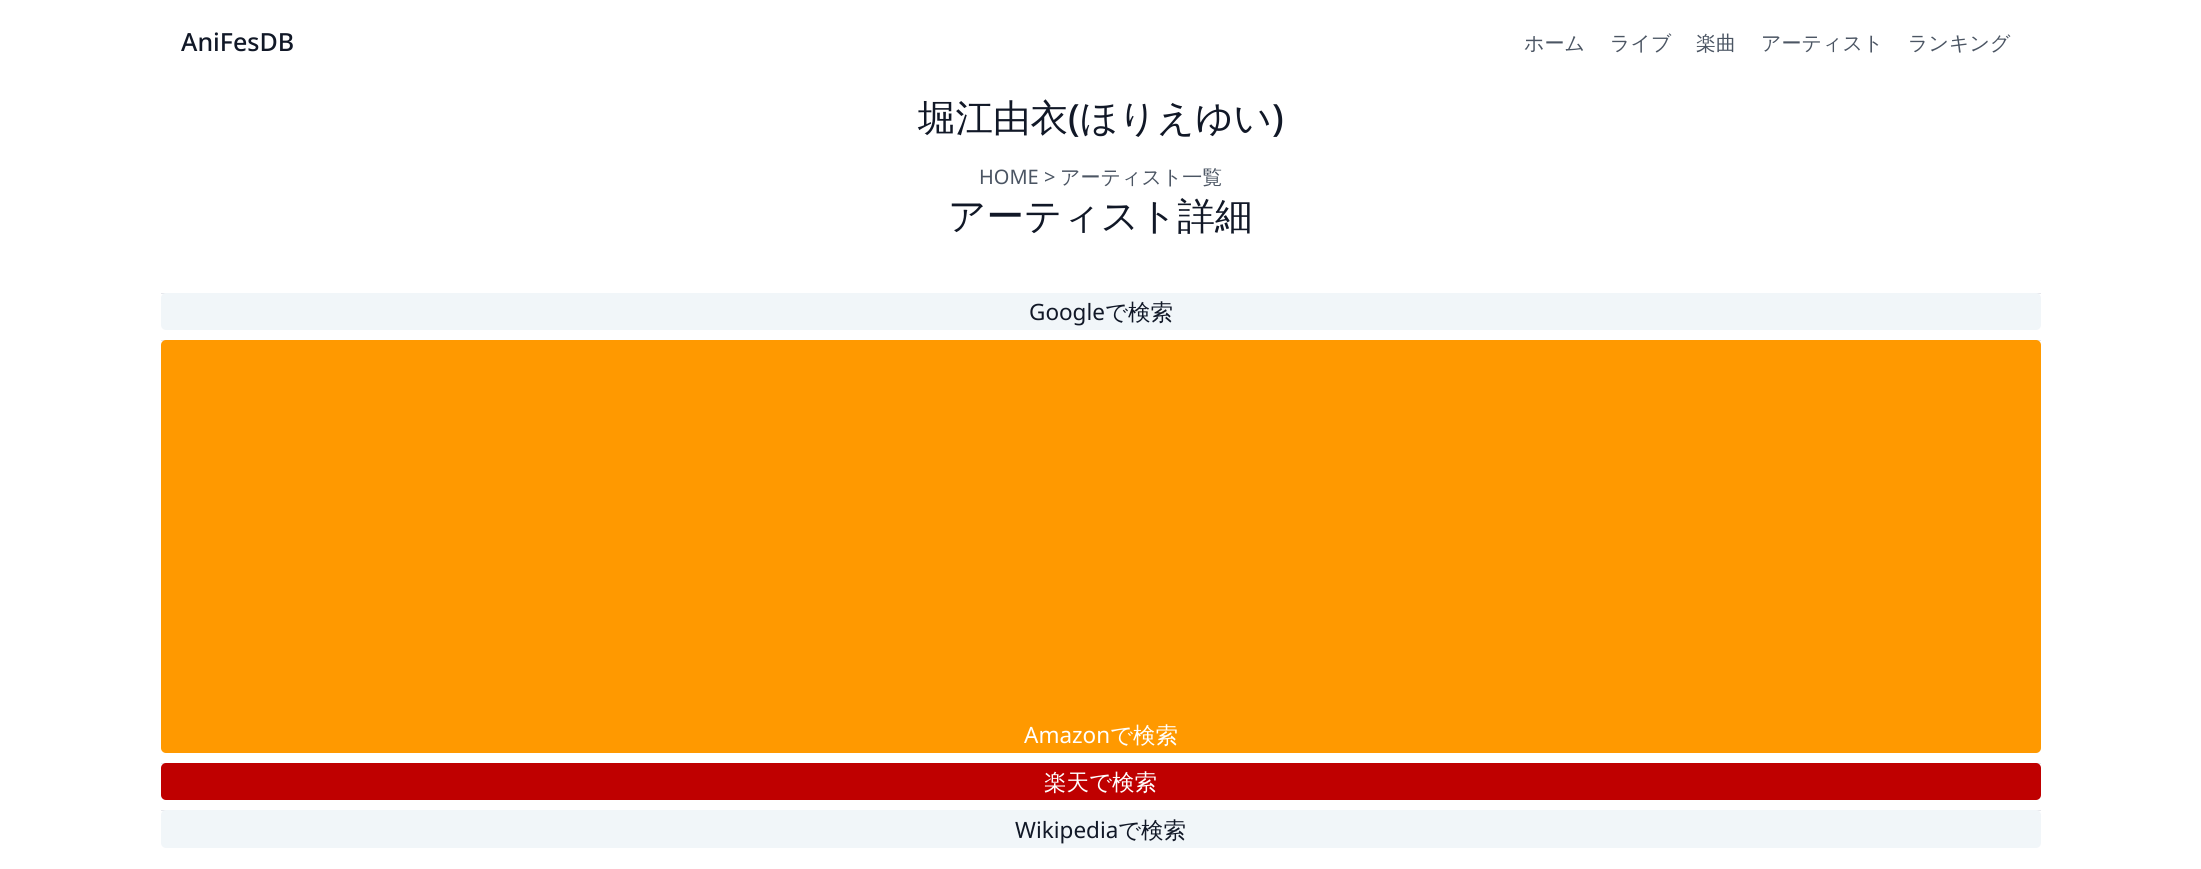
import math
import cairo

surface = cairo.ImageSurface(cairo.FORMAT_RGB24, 2201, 869)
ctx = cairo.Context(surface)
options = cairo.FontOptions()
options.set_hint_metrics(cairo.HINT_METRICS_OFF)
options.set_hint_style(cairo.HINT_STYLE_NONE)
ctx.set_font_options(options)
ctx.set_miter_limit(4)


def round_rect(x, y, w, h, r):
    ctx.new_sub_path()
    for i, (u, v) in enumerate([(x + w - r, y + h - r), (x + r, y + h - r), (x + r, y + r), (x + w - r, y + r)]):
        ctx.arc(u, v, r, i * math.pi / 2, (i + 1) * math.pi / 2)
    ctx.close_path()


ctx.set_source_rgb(1, 1, 1)
ctx.paint()
ctx.select_font_face("Noto Sans Medium")
ctx.set_font_size(25)
ctx.set_source_rgb(0.067, 0.094, 0.153)
ctx.move_to(181, 51)
ctx.show_text("AniFesDB")
ctx.select_font_face("WenQuanYi Zen Hei Medium")
ctx.set_font_size(20)
ctx.set_source_rgb(0.294, 0.333, 0.388)
ctx.move_to(1524, 50)
ctx.show_text("ホーム")
ctx.move_to(1610, 50)
ctx.show_text("ライブ")
ctx.move_to(1696, 50)
ctx.show_text("楽曲")
ctx.move_to(1761, 50)
ctx.show_text("アーティスト")
ctx.move_to(1908, 50)
ctx.show_text("ランキング")
ctx.set_font_size(37.5)
ctx.set_source_rgb(0.067, 0.094, 0.153)
ctx.move_to(918, 131)
ctx.show_text("堀江由衣")
ctx.select_font_face("Noto Sans Medium")
ctx.move_to(1068, 131)
ctx.show_text("(")
ctx.select_font_face("WenQuanYi Zen Hei Medium")
ctx.move_to(1080, 131)
ctx.show_text("ほりえゆい")
ctx.select_font_face("Noto Sans Medium")
ctx.move_to(1272, 131)
ctx.show_text(")")
ctx.select_font_face("Noto Sans")
ctx.set_font_size(20)
ctx.set_source_rgb(0.294, 0.333, 0.388)
ctx.move_to(979, 184)
ctx.show_text("HOME >")
ctx.select_font_face("WenQuanYi Zen Hei Medium")
ctx.move_to(1060, 184)
ctx.show_text("アーティスト一覧")
ctx.set_font_size(37.5)
ctx.set_source_rgb(0.067, 0.094, 0.153)
ctx.move_to(948, 229)
ctx.show_text("アーティスト詳細")
ctx.set_source_rgb(0.898, 0.906, 0.922)
ctx.rectangle(161, 293, 1880, 1)
ctx.fill()
ctx.set_source_rgb(0.945, 0.961, 0.976)
round_rect(161, 293, 1880, 37, 5)
ctx.fill()
ctx.select_font_face("Noto Sans")
ctx.set_font_size(22.5)
ctx.set_source_rgb(0.067, 0.094, 0.153)
ctx.move_to(1029, 320)
ctx.show_text("Google")
ctx.select_font_face("WenQuanYi Zen Hei Medium")
ctx.move_to(1105, 320)
ctx.show_text("で検索")
ctx.set_source_rgb(0.898, 0.906, 0.922)
ctx.rectangle(161, 340, 1880, 1)
ctx.fill()
ctx.set_source_rgb(1, 0.6, 0)
round_rect(161, 340, 1880, 413, 5)
ctx.fill()
ctx.select_font_face("Noto Sans")
ctx.set_source_rgb(1, 1, 1)
ctx.move_to(1024, 743)
ctx.show_text("Amazon")
ctx.select_font_face("WenQuanYi Zen Hei Medium")
ctx.move_to(1110, 743)
ctx.show_text("で検索")
ctx.set_source_rgb(0.898, 0.906, 0.922)
ctx.rectangle(161, 763, 1880, 1)
ctx.fill()
ctx.set_source_rgb(0.749, 0, 0)
round_rect(161, 763, 1880, 37, 5)
ctx.fill()
ctx.set_source_rgb(1, 1, 1)
ctx.move_to(1044, 790)
ctx.show_text("楽天で検索")
ctx.set_source_rgb(0.898, 0.906, 0.922)
ctx.rectangle(161, 810, 1880, 1)
ctx.fill()
ctx.set_source_rgb(0.945, 0.961, 0.976)
round_rect(161, 810, 1880, 38, 5)
ctx.fill()
ctx.select_font_face("Noto Sans")
ctx.set_source_rgb(0.067, 0.094, 0.153)
ctx.move_to(1015, 838)
ctx.show_text("Wikipedia")
ctx.select_font_face("WenQuanYi Zen Hei Medium")
ctx.move_to(1118, 838)
ctx.show_text("で検索")
surface.write_to_png("page.png")
